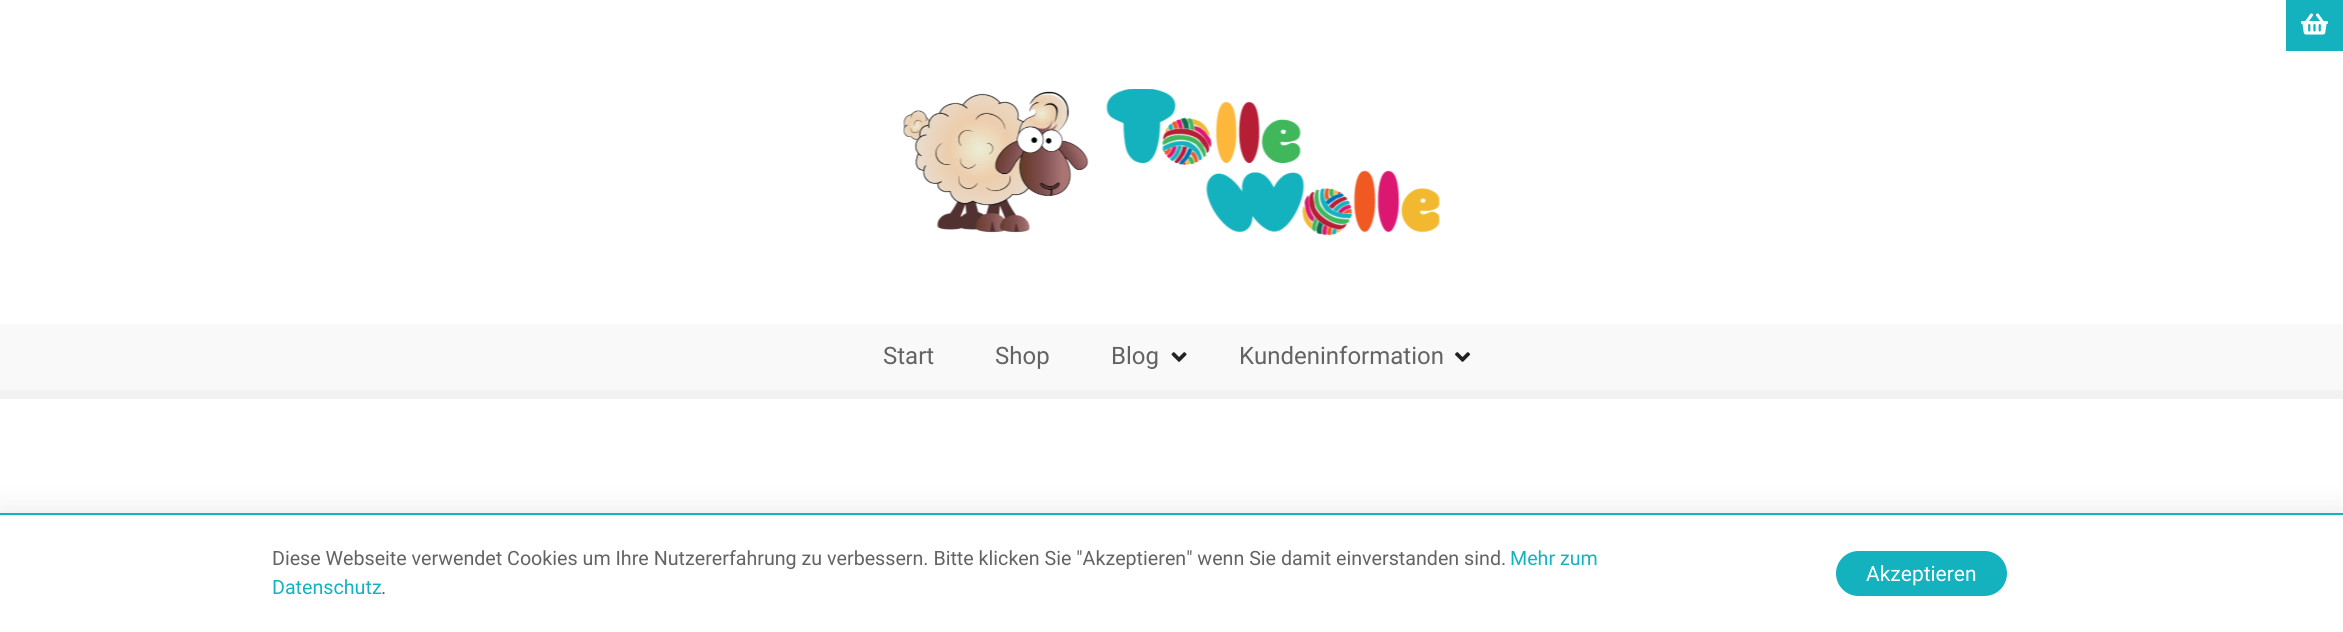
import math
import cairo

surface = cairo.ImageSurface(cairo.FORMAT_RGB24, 2343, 632)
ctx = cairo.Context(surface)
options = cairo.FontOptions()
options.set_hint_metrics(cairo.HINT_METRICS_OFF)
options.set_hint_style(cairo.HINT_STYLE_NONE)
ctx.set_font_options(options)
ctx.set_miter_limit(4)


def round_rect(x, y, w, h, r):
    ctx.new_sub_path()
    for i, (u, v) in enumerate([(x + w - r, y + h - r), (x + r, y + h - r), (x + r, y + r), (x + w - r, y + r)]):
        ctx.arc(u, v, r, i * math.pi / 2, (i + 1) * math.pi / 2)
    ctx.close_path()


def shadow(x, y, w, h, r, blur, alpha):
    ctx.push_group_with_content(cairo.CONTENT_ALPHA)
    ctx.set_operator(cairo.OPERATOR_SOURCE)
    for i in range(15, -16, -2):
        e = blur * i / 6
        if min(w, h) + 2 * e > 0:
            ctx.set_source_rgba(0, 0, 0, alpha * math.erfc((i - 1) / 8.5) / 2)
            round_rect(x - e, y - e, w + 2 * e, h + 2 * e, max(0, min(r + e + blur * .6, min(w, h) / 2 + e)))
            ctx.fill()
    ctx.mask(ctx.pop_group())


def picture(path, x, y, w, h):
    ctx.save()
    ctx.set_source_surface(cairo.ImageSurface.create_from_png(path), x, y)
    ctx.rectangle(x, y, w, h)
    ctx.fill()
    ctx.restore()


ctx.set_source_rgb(1, 1, 1)
ctx.paint()
picture("img1.png", 903, 89, 537, 147)
ctx.set_source_rgb(0.078, 0.698, 0.745)
ctx.rectangle(2286, 0, 57, 51)
ctx.fill()
picture("img2.png", 2301, 13, 27, 22)
ctx.set_source_rgb(0.976, 0.976, 0.976)
ctx.rectangle(0, 324, 2343, 66)
ctx.fill()
ctx.select_font_face("Roboto")
ctx.set_font_size(24)
ctx.set_source_rgb(0.388, 0.388, 0.388)
ctx.move_to(883, 364)
ctx.show_text("Start")
ctx.move_to(995, 364)
ctx.show_text("Shop")
ctx.move_to(1111, 364)
ctx.show_text("Blog")
picture("img3.png", 1171, 352, 16, 10)
ctx.move_to(1239, 364)
ctx.show_text("Kundeninformation")
picture("img4.png", 1455, 352, 15, 10)
ctx.set_source_rgb(0.949, 0.949, 0.949)
ctx.rectangle(0, 390, 2343, 9)
ctx.fill()
ctx.set_source_rgb(0, 0, 0)
shadow(0, 513, 2343, 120, 0, 15, 0.1)
ctx.set_source_rgb(1, 1, 1)
ctx.rectangle(0, 515, 2343, 117)
ctx.fill()
ctx.set_source_rgb(0.078, 0.698, 0.745)
ctx.rectangle(0, 513, 2343, 2)
ctx.fill()
ctx.set_font_size(19.68)
ctx.set_source_rgb(0.388, 0.388, 0.388)
ctx.move_to(272, 565)
ctx.show_text("Diese Webseite verwendet Cookies um Ihre Nutzererfahrung zu verbessern. Bitte klicken Sie \"Akzeptieren\" wenn Sie damit einverstanden sind.")
ctx.set_source_rgb(0.078, 0.698, 0.745)
ctx.move_to(1510, 565)
ctx.show_text("Mehr zum")
ctx.move_to(272, 594)
ctx.show_text("Datenschutz")
ctx.set_source_rgb(0.388, 0.388, 0.388)
ctx.move_to(381, 594)
ctx.show_text(".")
ctx.set_source_rgb(0.078, 0.698, 0.745)
round_rect(1836, 551, 171, 45, 22.5)
ctx.fill()
ctx.set_font_size(21)
ctx.set_source_rgb(1, 1, 1)
ctx.move_to(1866, 581)
ctx.show_text("Akzeptieren")
surface.write_to_png("page.png")
